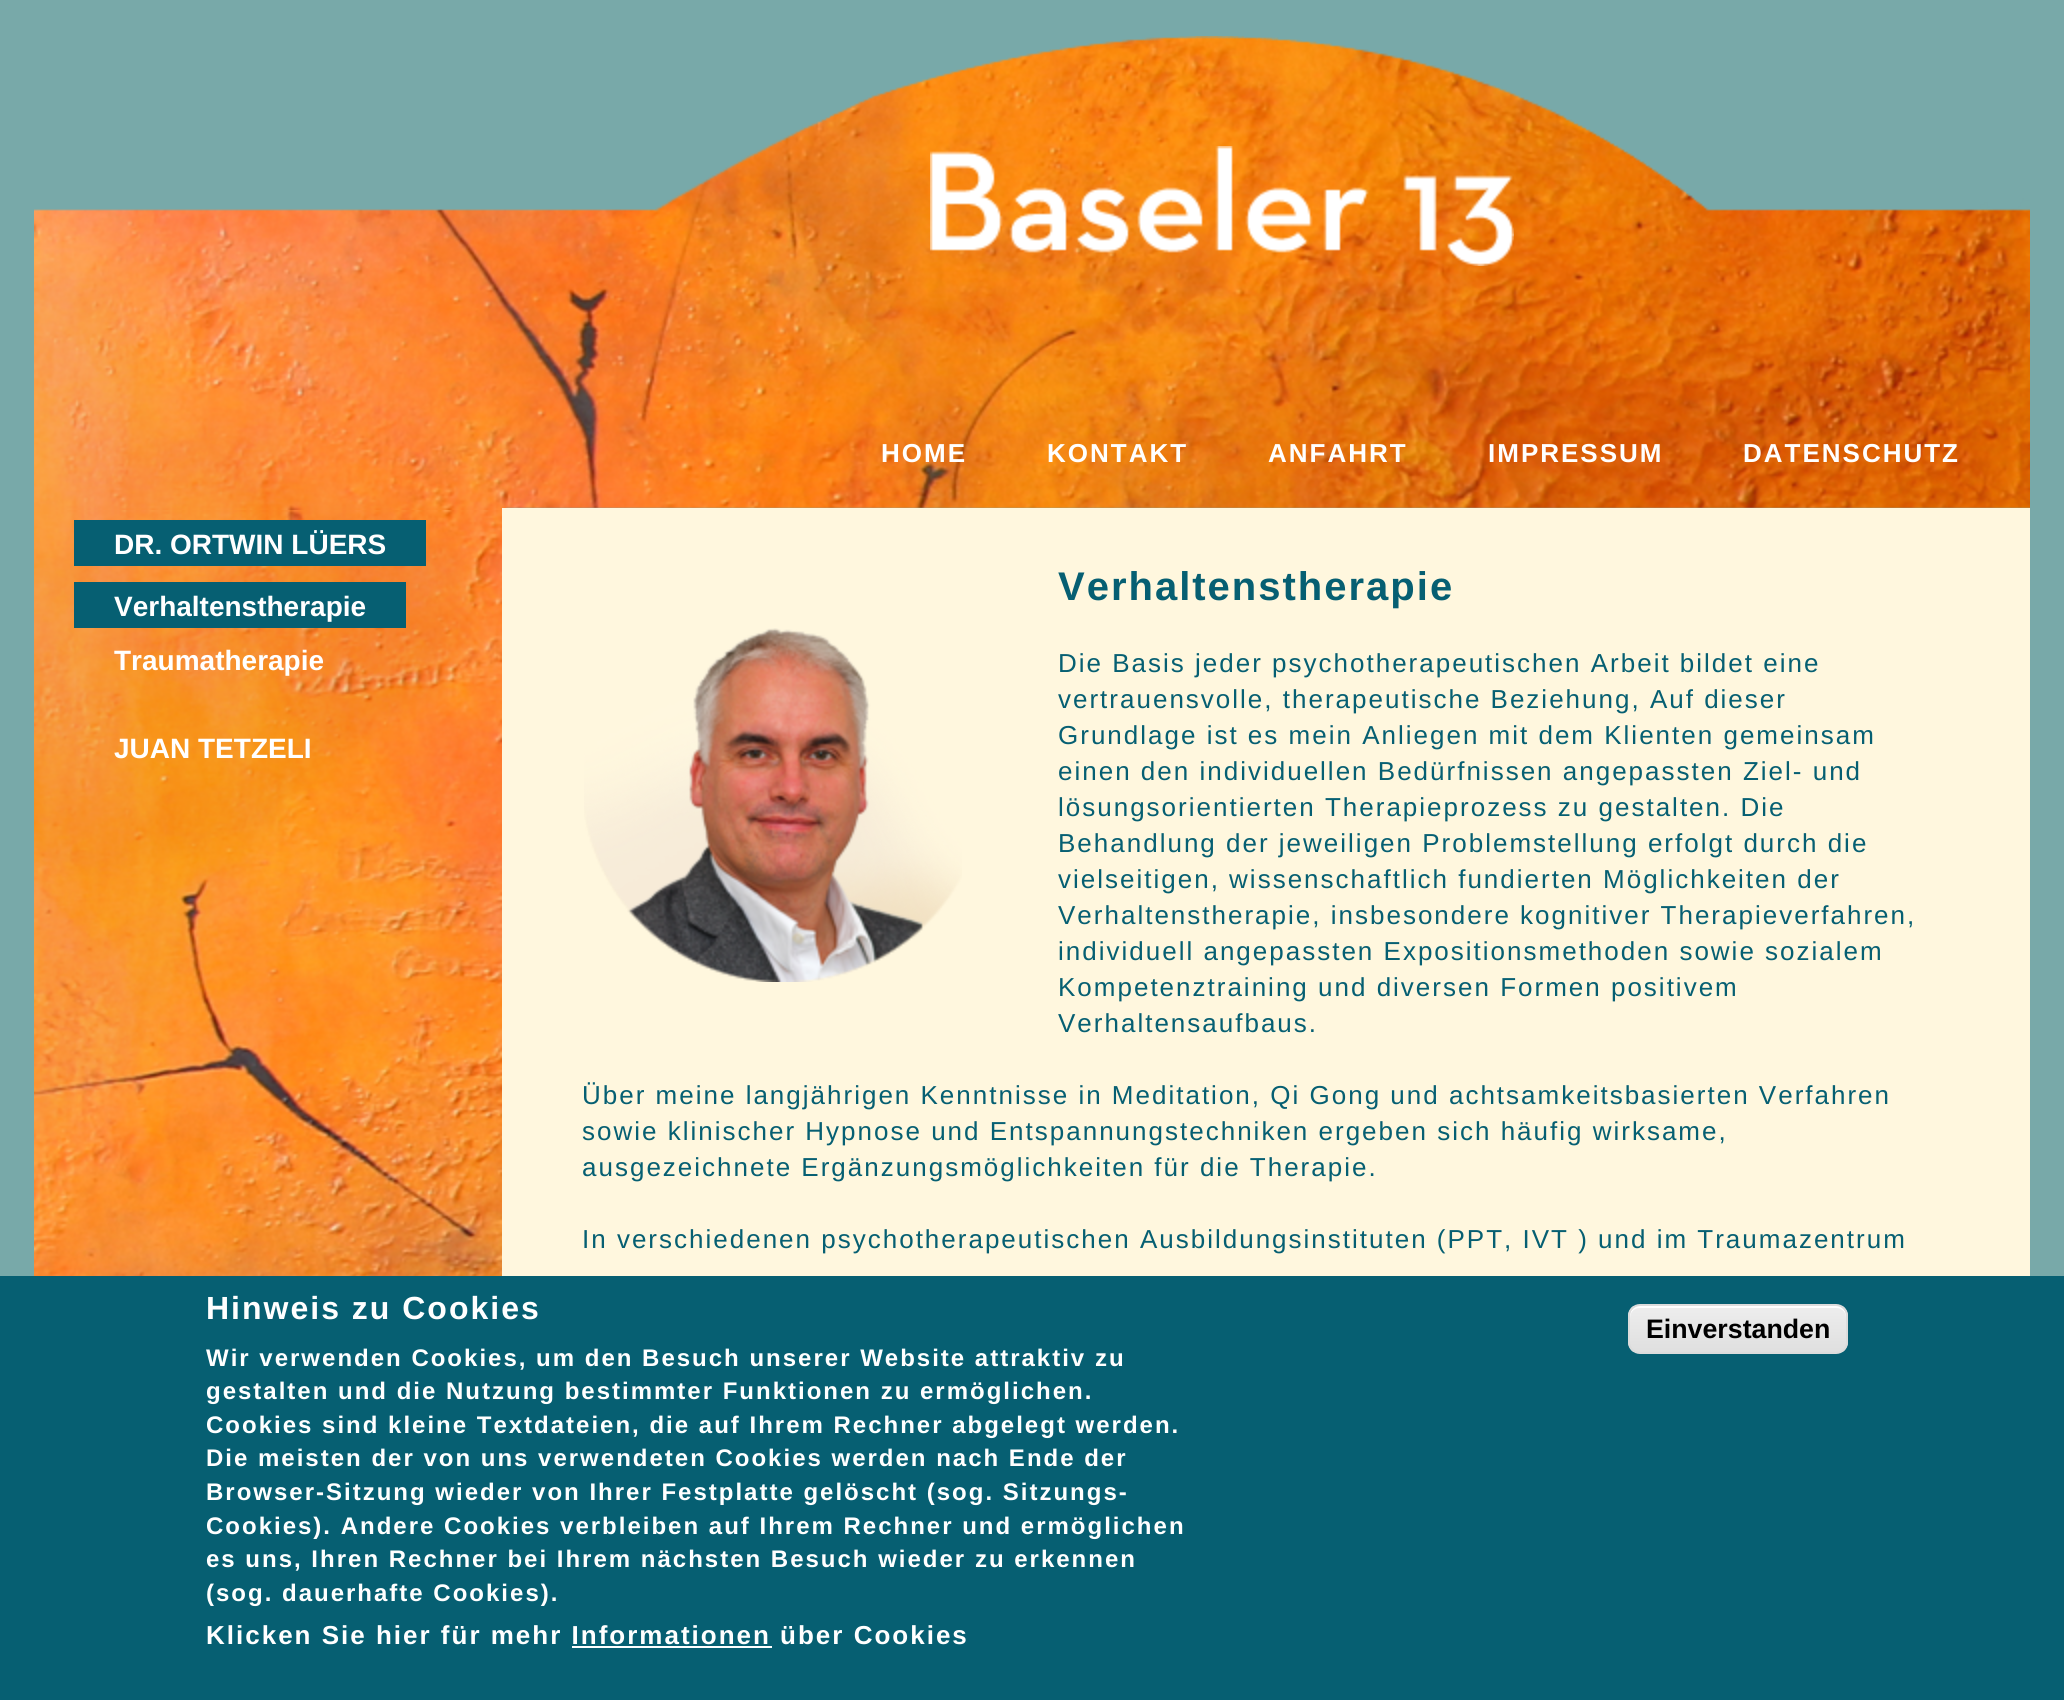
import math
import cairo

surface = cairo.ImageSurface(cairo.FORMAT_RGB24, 2064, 1700)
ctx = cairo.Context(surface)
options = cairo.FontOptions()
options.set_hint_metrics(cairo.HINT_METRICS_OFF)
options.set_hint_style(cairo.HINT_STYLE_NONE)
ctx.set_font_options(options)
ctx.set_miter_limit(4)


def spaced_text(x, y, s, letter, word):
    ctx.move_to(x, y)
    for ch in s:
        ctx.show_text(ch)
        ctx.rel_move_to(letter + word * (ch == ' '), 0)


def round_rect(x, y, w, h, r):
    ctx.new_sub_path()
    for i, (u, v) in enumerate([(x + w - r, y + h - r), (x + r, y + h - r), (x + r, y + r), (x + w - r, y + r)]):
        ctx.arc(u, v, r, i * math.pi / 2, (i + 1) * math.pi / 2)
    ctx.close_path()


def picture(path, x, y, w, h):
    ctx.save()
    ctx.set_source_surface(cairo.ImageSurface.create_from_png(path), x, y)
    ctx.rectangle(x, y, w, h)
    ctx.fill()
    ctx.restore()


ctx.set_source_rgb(0.471, 0.663, 0.663)
ctx.paint()
picture("img1.png", 34, 36, 1996, 474)
picture("img2.png", 930, 146, 584, 120)
ctx.select_font_face("Liberation Sans", cairo.FONT_SLANT_NORMAL, cairo.FONT_WEIGHT_BOLD)
ctx.set_font_size(26)
ctx.set_source_rgb(1, 1, 1)
spaced_text(881, 462, "HOME", 2, 0)
spaced_text(1047, 462, "KONTAKT", 2, 0)
spaced_text(1268, 462, "ANFAHRT", 2, 0)
spaced_text(1488, 462, "IMPRESSUM", 2, 0)
spaced_text(1743, 462, "DATENSCHUTZ", 2, 0)
picture("img3.png", 34, 510, 468, 766)
ctx.set_source_rgb(0.027, 0.373, 0.447)
ctx.rectangle(74, 520, 352, 46)
ctx.fill()
ctx.set_font_size(28)
ctx.set_source_rgb(1, 1, 1)
ctx.move_to(114, 554)
ctx.show_text("DR. ORTWIN LÜERS")
ctx.set_source_rgb(0.027, 0.373, 0.447)
ctx.rectangle(74, 582, 332, 46)
ctx.fill()
ctx.set_source_rgb(1, 1, 1)
ctx.move_to(114, 616)
ctx.show_text("Verhaltenstherapie")
ctx.move_to(114, 670)
ctx.show_text("Traumatherapie")
ctx.move_to(114, 758)
ctx.show_text("JUAN TETZELI")
ctx.set_source_rgb(1, 0.965, 0.871)
ctx.rectangle(502, 508, 1528, 768)
ctx.fill()
ctx.set_font_size(40)
ctx.set_source_rgb(0.027, 0.373, 0.447)
spaced_text(1058, 600, "Verhaltenstherapie", 2, 0)
picture("img4.png", 584, 628, 378, 354)
ctx.select_font_face("Liberation Sans")
ctx.set_font_size(26)
spaced_text(1058, 672, "Die Basis jeder psychotherapeutischen Arbeit bildet eine", 2, 0)
spaced_text(1058, 708, "vertrauensvolle, therapeutische Beziehung, Auf dieser", 2, 0)
spaced_text(1058, 744, "Grundlage ist es mein Anliegen mit dem Klienten gemeinsam", 2, 0)
spaced_text(1058, 780, "einen den individuellen Bedürfnissen angepassten Ziel- und", 2, 0)
spaced_text(1058, 816, "lösungsorientierten Therapieprozess zu gestalten. Die", 2, 0)
spaced_text(1058, 852, "Behandlung der jeweiligen Problemstellung erfolgt durch die", 2, 0)
spaced_text(1058, 888, "vielseitigen, wissenschaftlich fundierten Möglichkeiten der", 2, 0)
spaced_text(1058, 924, "Verhaltenstherapie, insbesondere kognitiver Therapieverfahren,", 2, 0)
spaced_text(1058, 960, "individuell angepassten Expositionsmethoden sowie sozialem", 2, 0)
spaced_text(1058, 996, "Kompetenztraining und diversen Formen positivem", 2, 0)
spaced_text(1058, 1032, "Verhaltensaufbaus.", 2, 0)
spaced_text(582, 1104, "Über meine langjährigen Kenntnisse in Meditation, Qi Gong und achtsamkeitsbasierten Verfahren", 2, 0)
spaced_text(582, 1140, "sowie klinischer Hypnose und Entspannungstechniken ergeben sich häufig wirksame,", 2, 0)
spaced_text(582, 1176, "ausgezeichnete Ergänzungsmöglichkeiten für die Therapie.", 2, 0)
spaced_text(582, 1248, "In verschiedenen psychotherapeutischen Ausbildungsinstituten (PPT, IVT ) und im Traumazentrum", 2, 0)
ctx.rectangle(0, 1276, 2064, 424)
ctx.fill()
ctx.select_font_face("Liberation Sans", cairo.FONT_SLANT_NORMAL, cairo.FONT_WEIGHT_BOLD)
ctx.set_font_size(32)
ctx.set_source_rgb(1, 1, 1)
spaced_text(206, 1319, "Hinweis zu Cookies", 2, 0)
ctx.set_font_size(24)
spaced_text(206, 1366, "Wir verwenden Cookies, um den Besuch unserer Website attraktiv zu", 2, 0)
spaced_text(206, 1399, "gestalten und die Nutzung bestimmter Funktionen zu ermöglichen.", 2, 0)
spaced_text(206, 1433, "Cookies sind kleine Textdateien, die auf Ihrem Rechner abgelegt werden.", 2, 0)
spaced_text(206, 1466, "Die meisten der von uns verwendeten Cookies werden nach Ende der", 2, 0)
spaced_text(206, 1500, "Browser-Sitzung wieder von Ihrer Festplatte gelöscht (sog. Sitzungs-", 2, 0)
spaced_text(206, 1534, "Cookies). Andere Cookies verbleiben auf Ihrem Rechner und ermöglichen", 2, 0)
spaced_text(206, 1567, "es uns, Ihren Rechner bei Ihrem nächsten Besuch wieder zu erkennen", 2, 0)
spaced_text(206, 1601, "(sog. dauerhafte Cookies).", 2, 0)
ctx.set_font_size(26)
spaced_text(206, 1644, "Klicken Sie hier für mehr Informationen über Cookies", 2, 0)
ctx.rectangle(572, 1646, 200, 2)
ctx.fill()
ctx.save()
round_rect(1628, 1304, 220, 50, 12)
ctx.clip()
gradient = cairo.LinearGradient(1738, 1306, 1738, 1352)
gradient.add_color_stop_rgba(0.05, 0.929, 0.929, 0.929, 1)
gradient.add_color_stop_rgba(1, 0.875, 0.875, 0.875, 1)
ctx.set_source(gradient)
ctx.rectangle(1628, 1306, 220, 46)
ctx.fill()
ctx.restore()
ctx.new_path()
ctx.move_to(1640, 1308)
ctx.line_to(1836, 1308)
ctx.curve_to(1842, 1308, 1846, 1312, 1846, 1318)
ctx.line_to(1846, 1316)
ctx.curve_to(1846, 1310, 1842, 1306, 1836, 1306)
ctx.line_to(1640, 1306)
ctx.curve_to(1634, 1306, 1630, 1310, 1630, 1316)
ctx.line_to(1630, 1318)
ctx.curve_to(1630, 1312, 1634, 1308, 1640, 1308)
ctx.close_path()
ctx.fill()
round_rect(1629, 1305, 218, 48, 11)
ctx.set_source_rgb(0.863, 0.863, 0.863)
ctx.stroke()
ctx.set_font_size(26.75)
ctx.set_source_rgb(0, 0, 0)
ctx.move_to(1646, 1338)
ctx.show_text("Einverstanden")
surface.write_to_png("page.png")
